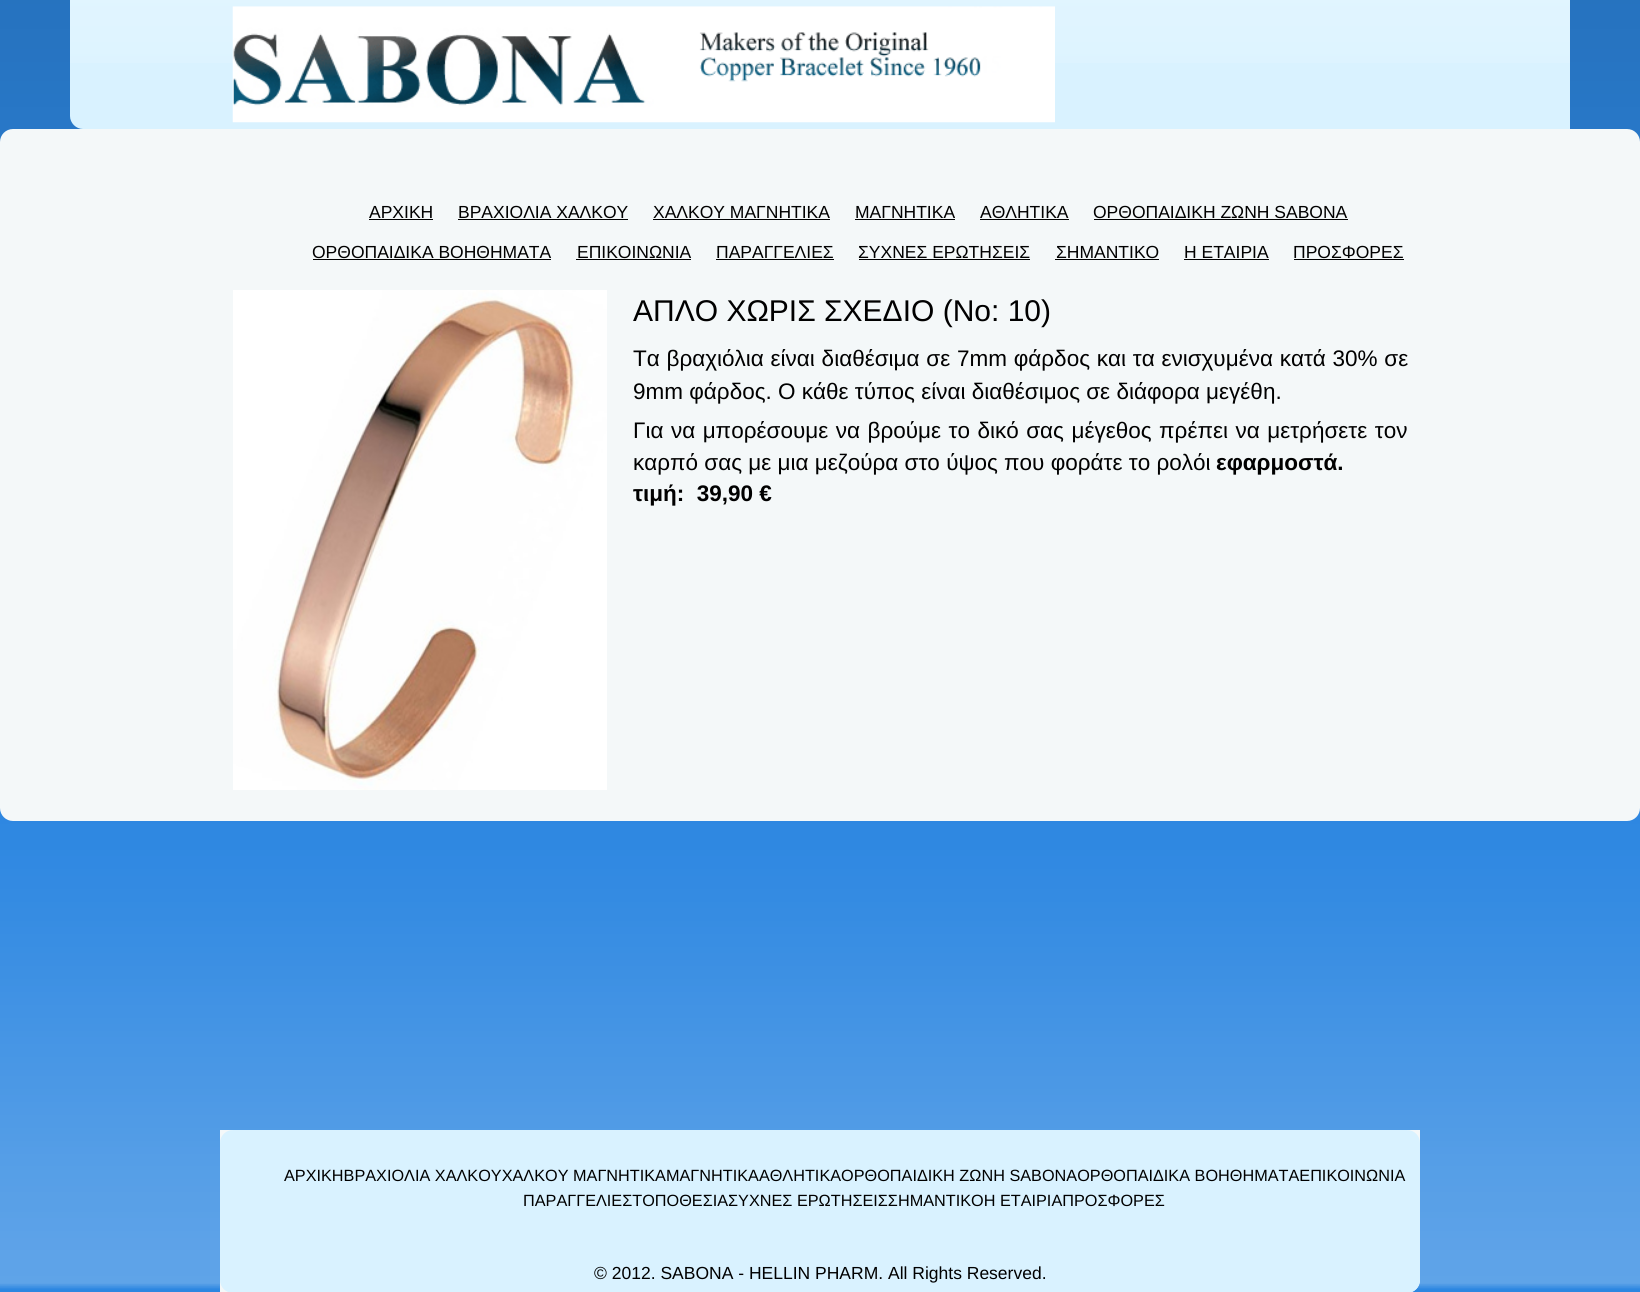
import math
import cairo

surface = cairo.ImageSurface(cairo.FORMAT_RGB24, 1640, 1292)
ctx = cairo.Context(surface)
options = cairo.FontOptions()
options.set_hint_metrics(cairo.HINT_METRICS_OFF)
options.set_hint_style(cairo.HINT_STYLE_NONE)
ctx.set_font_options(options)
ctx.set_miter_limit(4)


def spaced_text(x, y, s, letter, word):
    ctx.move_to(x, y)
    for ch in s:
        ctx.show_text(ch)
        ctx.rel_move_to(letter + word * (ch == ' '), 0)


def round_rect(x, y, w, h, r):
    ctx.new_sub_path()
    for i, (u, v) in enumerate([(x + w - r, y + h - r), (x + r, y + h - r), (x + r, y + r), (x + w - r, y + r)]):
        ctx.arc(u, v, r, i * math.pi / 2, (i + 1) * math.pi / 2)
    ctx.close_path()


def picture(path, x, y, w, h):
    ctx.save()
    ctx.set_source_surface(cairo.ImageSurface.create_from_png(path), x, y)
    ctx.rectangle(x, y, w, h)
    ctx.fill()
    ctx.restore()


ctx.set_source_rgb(0.176, 0.529, 0.882)
ctx.paint()
picture("img1.png", 0, 0, 1640, 1289)
ctx.set_source_rgb(0.851, 0.949, 1)
ctx.new_path()
ctx.move_to(70, 0)
ctx.line_to(1570, 0)
ctx.line_to(1570, 129)
ctx.line_to(83, 129)
ctx.curve_to(76, 129, 70, 123, 70, 116)
ctx.close_path()
ctx.fill()
picture("img2.png", 70, 0, 1500, 63)
picture("img3.png", 232, 6, 823, 117)
ctx.set_source_rgb(0.957, 0.969, 0.973)
round_rect(0, 129, 1640, 692, 13)
ctx.fill()
ctx.select_font_face("Liberation Sans")
ctx.set_font_size(17.5)
ctx.set_source_rgb(0, 0, 0)
ctx.move_to(369, 218)
ctx.show_text("ΑΡΧΙΚΗ")
ctx.rectangle(369, 219, 64, 1)
ctx.fill()
ctx.move_to(458, 218)
ctx.show_text("ΒΡΑΧΙΟΛΙΑ ΧΑΛΚΟΥ")
ctx.rectangle(458, 219, 170, 1)
ctx.fill()
ctx.move_to(653, 218)
ctx.show_text("ΧΑΛΚΟΥ ΜΑΓΝΗΤΙΚΑ")
ctx.rectangle(653, 219, 177, 1)
ctx.fill()
ctx.move_to(855, 218)
ctx.show_text("ΜΑΓΝΗΤΙΚΑ")
ctx.rectangle(855, 219, 100, 1)
ctx.fill()
ctx.move_to(980, 218)
ctx.show_text("ΑΘΛΗΤΙΚΑ")
ctx.rectangle(980, 219, 89, 1)
ctx.fill()
ctx.move_to(1093, 218)
ctx.show_text("ΟΡΘΟΠΑΙΔΙΚΗ ΖΩΝΗ SABONA")
ctx.rectangle(1094, 219, 254, 1)
ctx.fill()
ctx.move_to(312, 258)
ctx.show_text("ΟΡΘΟΠΑΙΔΙΚΑ ΒΟΗΘΗΜΑΤΑ")
ctx.rectangle(313, 259, 238, 1)
ctx.fill()
ctx.move_to(577, 258)
ctx.show_text("ΕΠΙΚΟΙΝΩΝΙΑ")
ctx.rectangle(576, 259, 115, 1)
ctx.fill()
ctx.move_to(716, 258)
ctx.show_text("ΠΑΡΑΓΓΕΛΙΕΣ")
ctx.rectangle(716, 259, 118, 1)
ctx.fill()
ctx.move_to(858, 258)
ctx.show_text("ΣΥΧΝΕΣ ΕΡΩΤΗΣΕΙΣ")
ctx.rectangle(859, 259, 171, 1)
ctx.fill()
ctx.move_to(1056, 258)
ctx.show_text("ΣΗΜΑΝΤΙΚΟ")
ctx.rectangle(1055, 259, 104, 1)
ctx.fill()
ctx.move_to(1184, 258)
ctx.show_text("Η ΕΤΑΙΡΙΑ")
ctx.rectangle(1184, 259, 85, 1)
ctx.fill()
ctx.move_to(1293, 258)
ctx.show_text("ΠΡΟΣΦΟΡΕΣ")
ctx.rectangle(1294, 259, 110, 1)
ctx.fill()
picture("img4.png", 233, 290, 374, 500)
ctx.set_font_size(30)
ctx.move_to(633, 321)
ctx.show_text("ΑΠΛΟ ΧΩΡΙΣ ΣΧΕΔΙΟ (Νο: 10)")
ctx.set_font_size(22.5)
spaced_text(633, 366, "Τα βραχιόλια είναι διαθέσιμα σε 7mm φάρδος και τα ενισχυμένα κατά 30% σε", 0, 0.5)
ctx.move_to(633, 399)
ctx.show_text("9mm φάρδος. Ο κάθε τύπος είναι διαθέσιμος σε διάφορα μεγέθη.")
spaced_text(633, 438, "Για να μπορέσουμε να βρούμε το δικό σας μέγεθος πρέπει να μετρήσετε τον", 0, 1.25)
ctx.move_to(633, 470)
ctx.show_text("καρπό σας με μια μεζούρα στο ύψος που φοράτε το ρολόι")
ctx.select_font_face("Liberation Sans", cairo.FONT_SLANT_NORMAL, cairo.FONT_WEIGHT_BOLD)
ctx.move_to(1216, 470)
ctx.show_text("εφαρμοστά.")
ctx.move_to(633, 501)
ctx.show_text("τιμή:  39,90 €")
ctx.set_source_rgb(0.957, 0.969, 0.973)
ctx.new_path()
ctx.move_to(220, 1130)
ctx.line_to(1420, 1130)
ctx.line_to(1420, 1280)
ctx.curve_to(1420, 1287, 1414, 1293, 1407, 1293)
ctx.line_to(220, 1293)
ctx.close_path()
ctx.fill()
ctx.set_source_rgb(0.851, 0.949, 1)
round_rect(220, 1130, 1200, 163, 13)
ctx.fill()
ctx.select_font_face("Liberation Sans")
ctx.set_font_size(16.25)
ctx.set_source_rgb(0, 0, 0)
ctx.move_to(284, 1181)
ctx.show_text("ΑΡΧΙΚΗΒΡΑΧΙΟΛΙΑ ΧΑΛΚΟΥΧΑΛΚΟΥ ΜΑΓΝΗΤΙΚΑΜΑΓΝΗΤΙΚΑΑΘΛΗΤΙΚΑΟΡΘΟΠΑΙΔΙΚΗ ΖΩΝΗ SABONAΟΡΘΟΠΑΙΔΙΚΑ ΒΟΗΘΗΜΑΤΑΕΠΙΚΟΙΝΩΝΙΑ")
ctx.move_to(523, 1206)
ctx.show_text("ΠΑΡΑΓΓΕΛΙΕΣΤΟΠΟΘΕΣΙΑΣΥΧΝΕΣ ΕΡΩΤΗΣΕΙΣΣΗΜΑΝΤΙΚΟΗ ΕΤΑΙΡΙΑΠΡΟΣΦΟΡΕΣ")
ctx.set_font_size(17.5)
ctx.move_to(594, 1279)
ctx.show_text("© 2012. SABONA - HELLIN PHARM. All Rights Reserved.")
surface.write_to_png("page.png")
